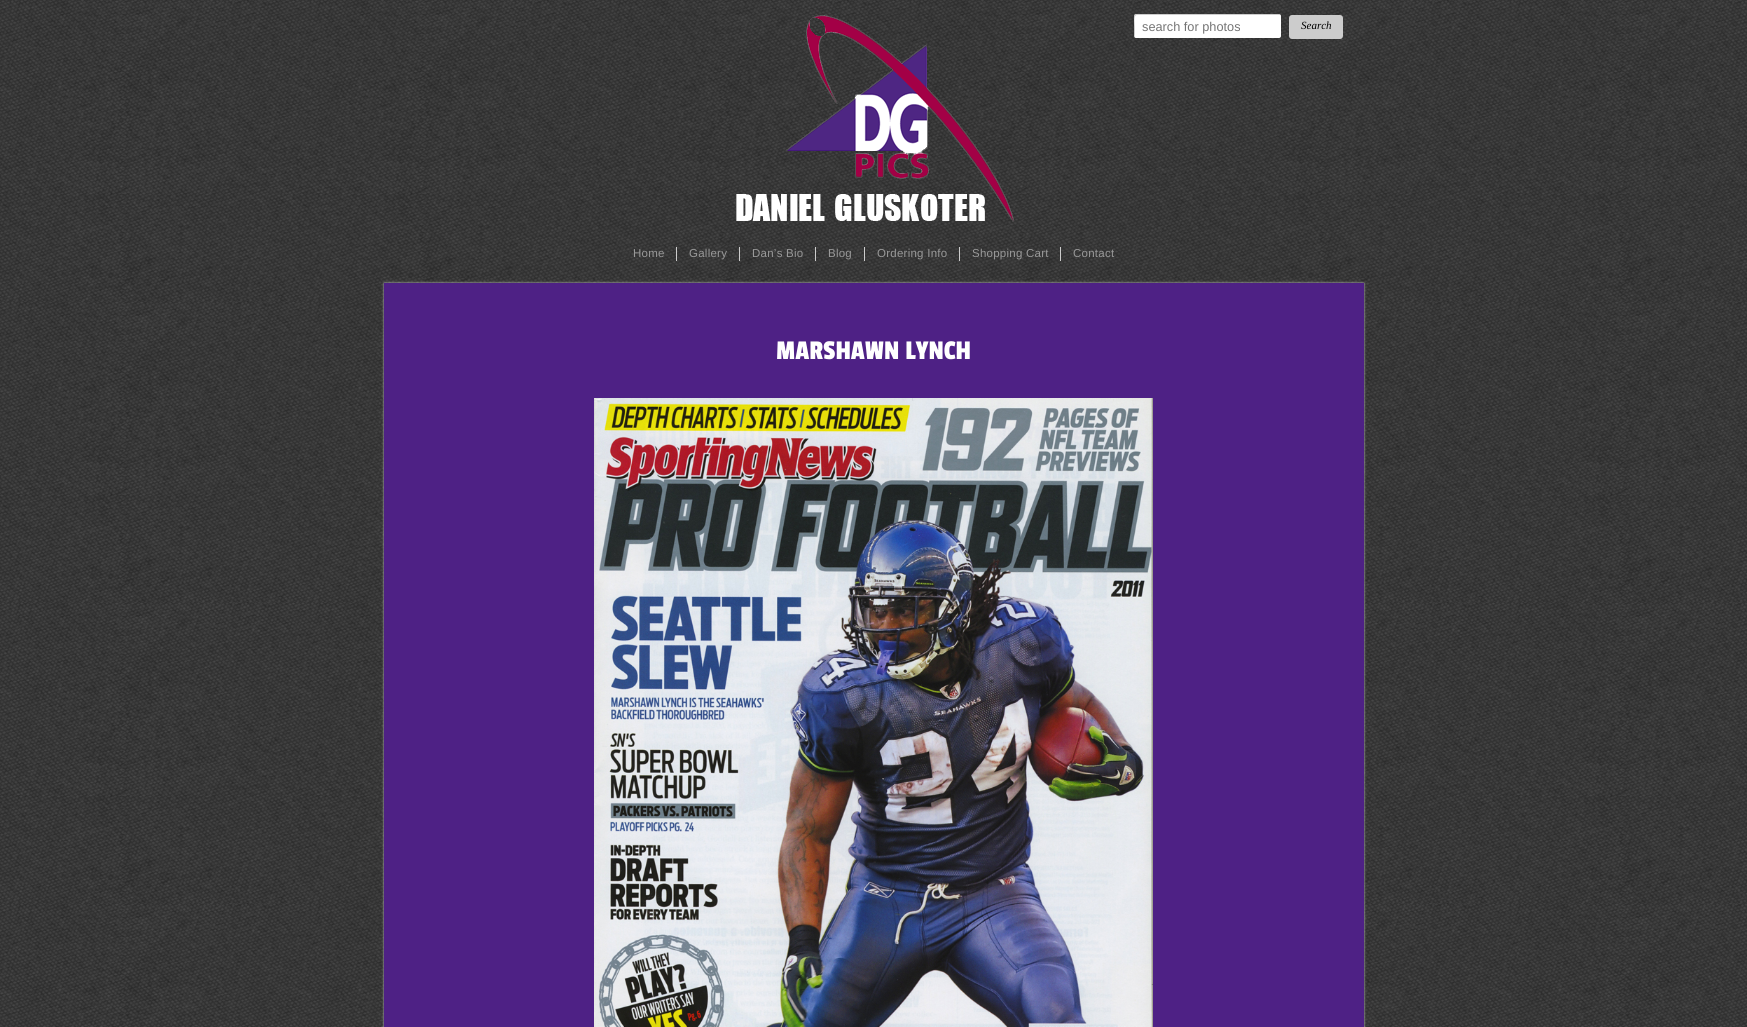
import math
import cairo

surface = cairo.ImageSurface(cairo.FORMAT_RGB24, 1747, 1027)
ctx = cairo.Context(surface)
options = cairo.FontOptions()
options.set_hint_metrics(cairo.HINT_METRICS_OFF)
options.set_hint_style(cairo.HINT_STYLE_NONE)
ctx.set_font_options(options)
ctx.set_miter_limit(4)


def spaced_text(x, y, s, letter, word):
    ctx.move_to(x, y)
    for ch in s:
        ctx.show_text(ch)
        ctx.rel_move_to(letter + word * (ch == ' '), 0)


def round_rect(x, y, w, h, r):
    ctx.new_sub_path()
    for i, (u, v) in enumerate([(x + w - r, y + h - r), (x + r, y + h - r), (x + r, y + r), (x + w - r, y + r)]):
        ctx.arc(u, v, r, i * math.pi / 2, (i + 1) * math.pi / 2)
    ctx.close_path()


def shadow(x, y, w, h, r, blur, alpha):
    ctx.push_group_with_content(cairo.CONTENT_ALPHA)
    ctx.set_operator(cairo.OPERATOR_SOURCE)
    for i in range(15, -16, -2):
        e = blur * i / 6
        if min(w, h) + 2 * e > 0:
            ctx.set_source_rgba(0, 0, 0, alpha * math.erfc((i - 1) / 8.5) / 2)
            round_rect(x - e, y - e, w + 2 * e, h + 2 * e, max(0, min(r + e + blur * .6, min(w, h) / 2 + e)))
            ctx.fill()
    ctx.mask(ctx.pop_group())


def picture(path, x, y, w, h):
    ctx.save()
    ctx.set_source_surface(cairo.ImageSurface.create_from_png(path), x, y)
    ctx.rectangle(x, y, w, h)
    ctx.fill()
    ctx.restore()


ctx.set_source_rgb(1, 1, 1)
ctx.paint()
picture("img1.png", 0, 0, 1747, 1027)
picture("img2.png", 736, 15, 278, 207)
ctx.set_source_rgb(1, 1, 1)
round_rect(1134, 14, 147, 24, 2)
ctx.fill()
ctx.set_source_rgba(0, 0, 0, 0.2)
ctx.new_path()
ctx.move_to(1137, 15)
ctx.line_to(1281, 15)
ctx.line_to(1279, 14)
ctx.line_to(1136, 14)
ctx.curve_to(1135, 14, 1134, 15, 1134, 16)
ctx.curve_to(1134, 19, 1133, 37, 1135, 38)
ctx.line_to(1135, 27)
ctx.curve_to(1135, 25, 1133, 15, 1137, 15)
ctx.close_path()
ctx.fill()
ctx.select_font_face("Liberation Sans")
ctx.set_font_size(12.75)
ctx.set_source_rgb(0.459, 0.459, 0.459)
ctx.move_to(1142, 31)
ctx.show_text("search for photos")
ctx.set_source_rgb(0.8, 0.8, 0.8)
round_rect(1289, 15, 54, 24, 3)
ctx.fill()
ctx.select_font_face("Liberation Serif", cairo.FONT_SLANT_ITALIC)
ctx.set_font_size(11)
ctx.set_source_rgb(0, 0, 0)
ctx.move_to(1301, 29)
ctx.show_text("Search")
ctx.select_font_face("Liberation Sans")
ctx.set_font_size(11.5)
ctx.set_source_rgb(0.6, 0.6, 0.6)
spaced_text(633, 257, "Home", 0.25, 0)
ctx.set_source_rgb(0.8, 0.8, 0.8)
ctx.rectangle(676, 247, 1, 14)
ctx.fill()
ctx.set_source_rgb(0.6, 0.6, 0.6)
spaced_text(689, 257, "Gallery", 0.25, 0)
ctx.set_source_rgb(0.8, 0.8, 0.8)
ctx.rectangle(739, 247, 1, 14)
ctx.fill()
ctx.set_source_rgb(0.6, 0.6, 0.6)
spaced_text(752, 257, "Dan’s Bio", 0.25, 0)
ctx.set_source_rgb(0.8, 0.8, 0.8)
ctx.rectangle(815, 247, 1, 14)
ctx.fill()
ctx.set_source_rgb(0.6, 0.6, 0.6)
spaced_text(828, 257, "Blog", 0.25, 0)
ctx.set_source_rgb(0.8, 0.8, 0.8)
ctx.rectangle(864, 247, 1, 14)
ctx.fill()
ctx.set_source_rgb(0.6, 0.6, 0.6)
spaced_text(877, 257, "Ordering Info", 0.25, 0)
ctx.set_source_rgb(0.8, 0.8, 0.8)
ctx.rectangle(959, 247, 1, 14)
ctx.fill()
ctx.set_source_rgb(0.6, 0.6, 0.6)
spaced_text(972, 257, "Shopping Cart", 0.25, 0)
ctx.set_source_rgb(0.8, 0.8, 0.8)
ctx.rectangle(1060, 247, 1, 14)
ctx.fill()
ctx.set_source_rgb(0.6, 0.6, 0.6)
spaced_text(1073, 257, "Contact", 0.25, 0)
ctx.set_source_rgb(0.8, 0.8, 0.8)
shadow(384, 283, 980, 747, 0, 1, 1)
ctx.set_source_rgb(0.306, 0.129, 0.522)
ctx.rectangle(384, 283, 980, 744)
ctx.fill()
ctx.select_font_face("Passion One")
ctx.set_font_size(28.25)
ctx.set_source_rgb(1, 1, 1)
ctx.move_to(776, 359)
ctx.show_text("MARSHAWN LYNCH")
picture("img3.png", 594, 398, 559, 629)
surface.write_to_png("page.png")
